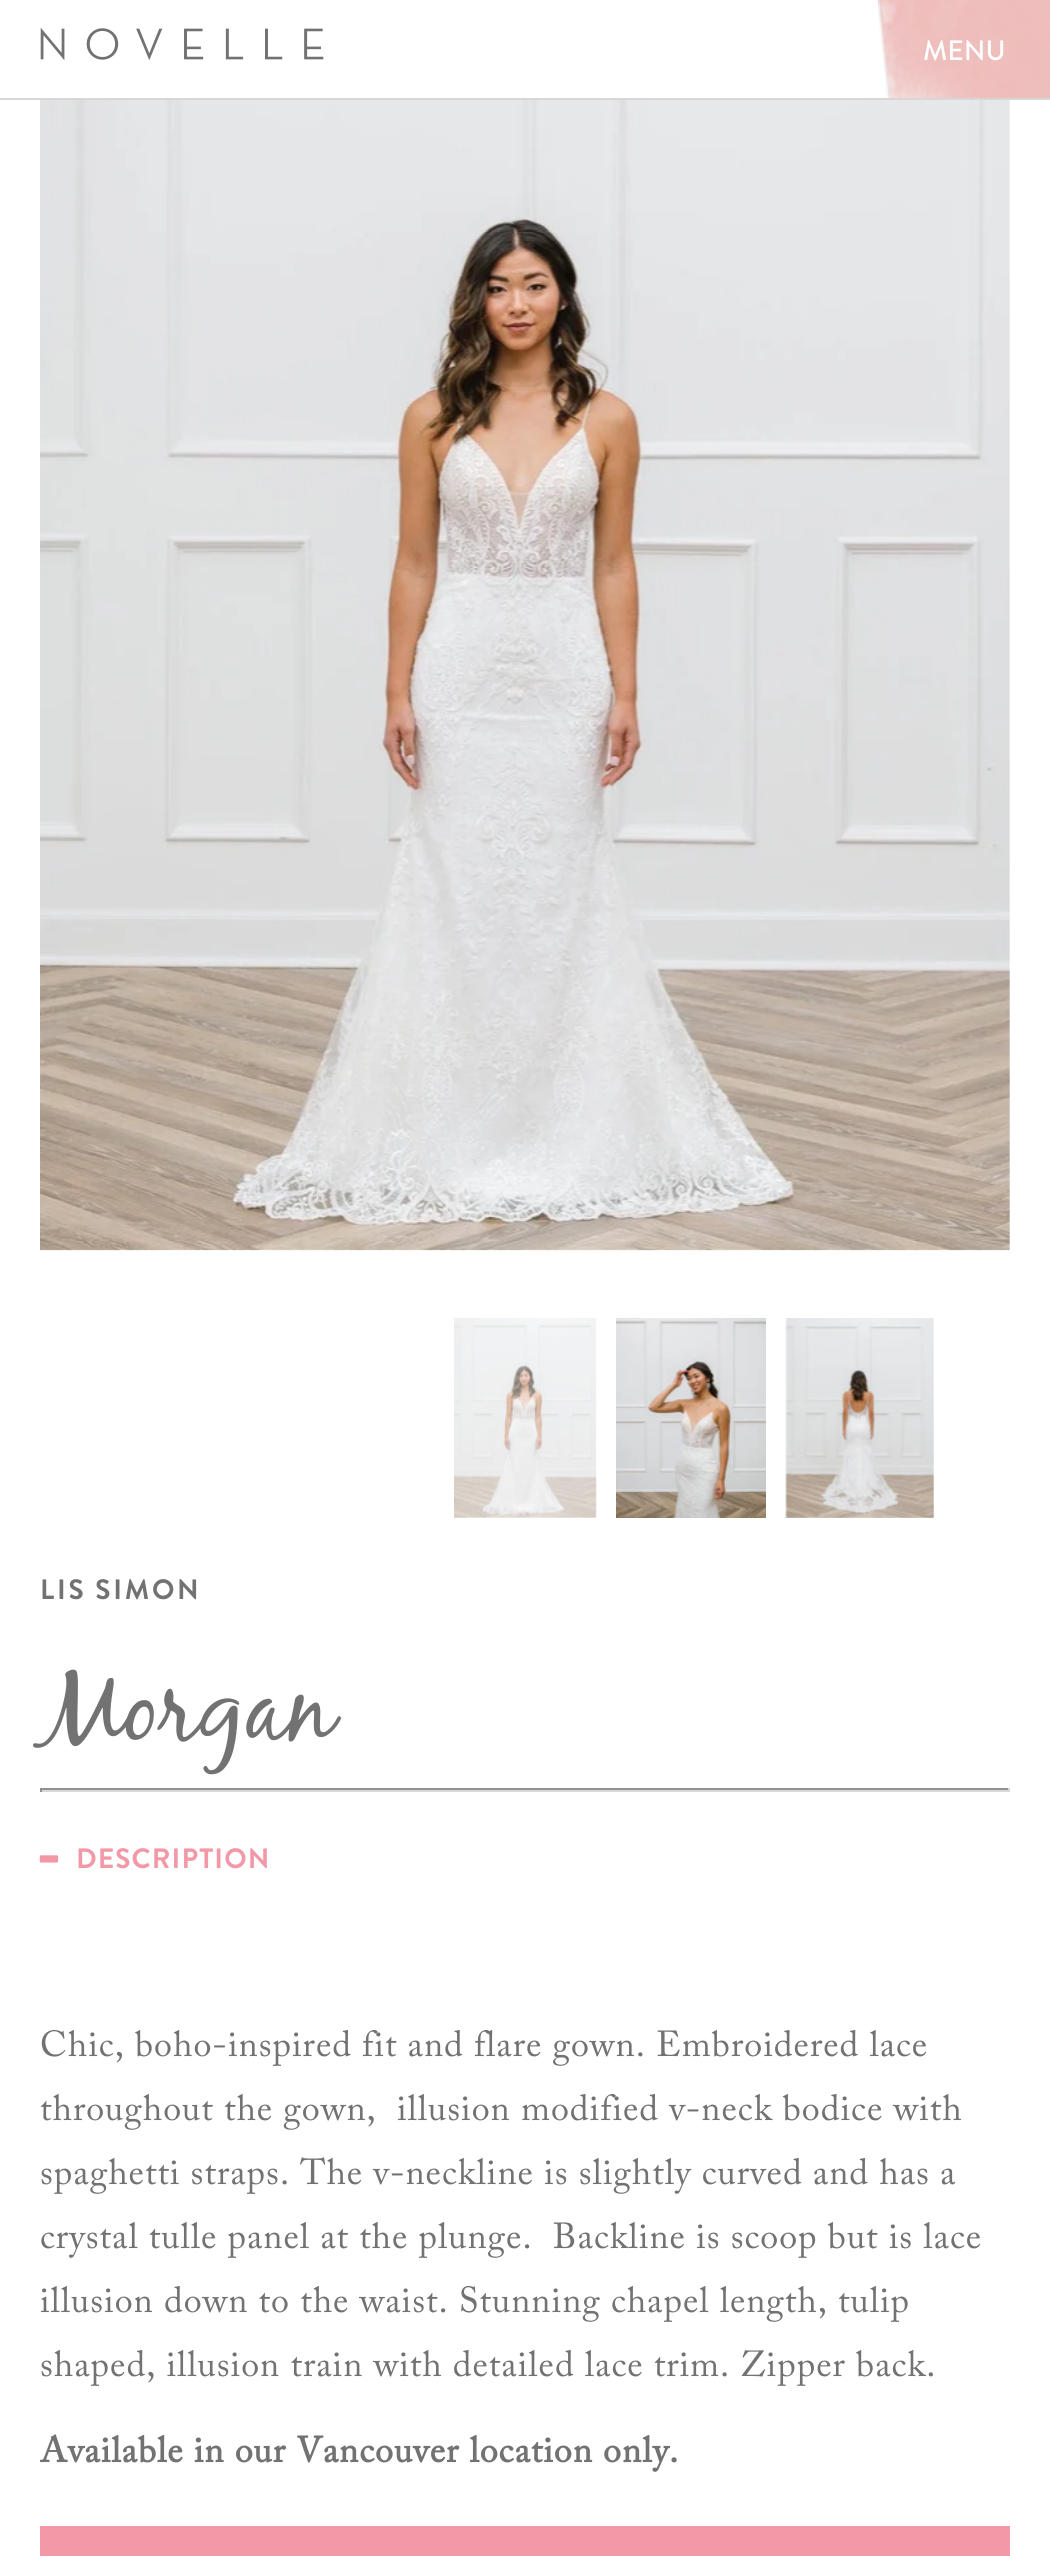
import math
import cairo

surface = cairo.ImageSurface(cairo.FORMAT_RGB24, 1050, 2556)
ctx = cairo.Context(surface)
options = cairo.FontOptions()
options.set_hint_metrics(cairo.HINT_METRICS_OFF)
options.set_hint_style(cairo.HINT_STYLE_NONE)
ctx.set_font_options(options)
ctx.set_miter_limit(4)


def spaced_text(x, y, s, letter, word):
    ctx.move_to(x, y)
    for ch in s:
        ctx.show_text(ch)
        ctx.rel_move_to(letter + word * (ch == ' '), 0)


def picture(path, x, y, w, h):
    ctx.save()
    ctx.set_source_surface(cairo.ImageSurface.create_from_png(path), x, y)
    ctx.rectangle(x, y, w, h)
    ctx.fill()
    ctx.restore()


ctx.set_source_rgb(1, 1, 1)
ctx.paint()
ctx.set_source_rgb(0.843, 0.843, 0.843)
ctx.rectangle(0, 98, 1050, 2)
ctx.fill()
picture("img1.png", 40, 28, 284, 32)
picture("img2.png", 878, 0, 172, 98)
ctx.select_font_face("Brandon Grotesque Medium")
ctx.set_font_size(28)
ctx.set_source_rgb(1, 1, 1)
ctx.move_to(923, 60)
ctx.show_text("MENU")
picture("img3.png", 40, 100, 970, 1151)
picture("img4.png", 454, 1318, 143, 200)
picture("img5.png", 616, 1318, 150, 200)
picture("img6.png", 785, 1318, 149, 200)
ctx.select_font_face("Brandon Grotesque", cairo.FONT_SLANT_NORMAL, cairo.FONT_WEIGHT_BOLD)
ctx.set_source_rgb(0.447, 0.447, 0.447)
spaced_text(40, 1599, "LIS SIMON", 2.75, 0)
ctx.select_font_face("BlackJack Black")
ctx.set_font_size(100)
ctx.move_to(40, 1738)
ctx.show_text("Morgan")
ctx.set_source_rgb(0.565, 0.565, 0.565)
ctx.rectangle(40, 1788, 970, 2)
ctx.fill()
ctx.set_source_rgb(0.847, 0.847, 0.847)
ctx.rectangle(1008, 1788, 2, 4)
ctx.fill()
ctx.rectangle(40, 1790, 970, 2)
ctx.fill()
ctx.set_source_rgb(0.565, 0.565, 0.565)
ctx.rectangle(40, 1788, 2, 4)
ctx.fill()
ctx.select_font_face("Brandon Grotesque", cairo.FONT_SLANT_NORMAL, cairo.FONT_WEIGHT_BOLD)
ctx.set_font_size(70)
ctx.set_source_rgb(0.949, 0.596, 0.655)
spaced_text(36, 1876, "-", 1.1, 0)
ctx.set_font_size(28)
spaced_text(76, 1868, "DESCRIPTION", 1.1, 0)
ctx.select_font_face("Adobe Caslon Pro")
ctx.set_font_size(36)
ctx.set_source_rgb(0.447, 0.447, 0.447)
spaced_text(40, 2056, "Chic, boho-inspired fit and flare gown. Embroidered lace", 1, 0)
spaced_text(40, 2120, "throughout the gown,  illusion modified v-neck bodice with", 1, 0)
spaced_text(40, 2184, "spaghetti straps. The v-neckline is slightly curved and has a", 1, 0)
spaced_text(40, 2248, "crystal tulle panel at the plunge.  Backline is scoop but is lace", 1, 0)
spaced_text(40, 2312, "illusion down to the waist. Stunning chapel length, tulip", 1, 0)
spaced_text(40, 2376, "shaped, illusion train with detailed lace trim. Zipper back.", 1, 0)
ctx.select_font_face("Adobe Caslon Pro", cairo.FONT_SLANT_NORMAL, cairo.FONT_WEIGHT_BOLD)
spaced_text(40, 2462, "Available in our Vancouver location only.", 1, 0)
ctx.set_source_rgb(0.949, 0.596, 0.655)
ctx.rectangle(40, 2526, 970, 30)
ctx.fill()
surface.write_to_png("page.png")
